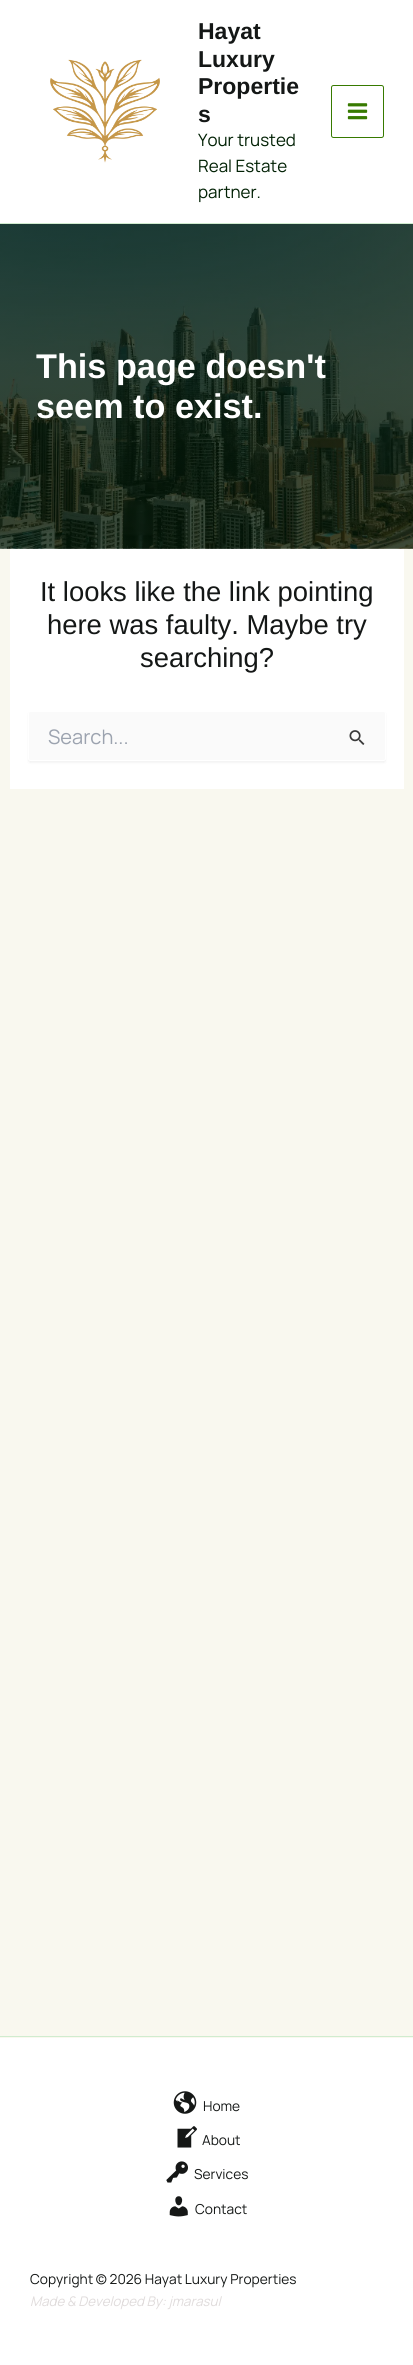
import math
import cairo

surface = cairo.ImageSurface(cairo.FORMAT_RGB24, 413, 2365)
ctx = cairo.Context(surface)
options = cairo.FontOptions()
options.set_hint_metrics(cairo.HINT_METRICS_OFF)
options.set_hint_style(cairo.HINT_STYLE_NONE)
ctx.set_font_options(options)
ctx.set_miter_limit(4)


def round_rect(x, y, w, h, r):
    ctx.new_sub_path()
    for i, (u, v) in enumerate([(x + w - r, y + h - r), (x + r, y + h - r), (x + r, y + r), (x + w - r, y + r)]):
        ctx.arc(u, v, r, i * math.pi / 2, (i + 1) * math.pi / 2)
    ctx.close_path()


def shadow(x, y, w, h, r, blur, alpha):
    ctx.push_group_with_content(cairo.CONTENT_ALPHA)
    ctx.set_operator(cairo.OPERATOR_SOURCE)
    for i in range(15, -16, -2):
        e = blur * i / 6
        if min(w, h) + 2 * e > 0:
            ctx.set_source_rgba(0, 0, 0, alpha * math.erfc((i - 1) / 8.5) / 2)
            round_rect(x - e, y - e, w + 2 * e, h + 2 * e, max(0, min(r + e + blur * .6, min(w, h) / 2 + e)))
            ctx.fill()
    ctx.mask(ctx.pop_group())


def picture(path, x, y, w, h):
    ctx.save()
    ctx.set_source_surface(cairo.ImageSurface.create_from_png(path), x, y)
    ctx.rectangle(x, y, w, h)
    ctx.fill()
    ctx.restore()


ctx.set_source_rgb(0.976, 0.969, 0.937)
ctx.paint()
ctx.set_source_rgb(1, 1, 1)
ctx.rectangle(0, 0, 413, 223)
ctx.fill()
ctx.set_source_rgb(0.816, 0.922, 0.812)
ctx.rectangle(0, 223, 413, 1)
ctx.fill()
picture("img1.png", 50, 59, 110, 104)
ctx.select_font_face("Liberation Sans", cairo.FONT_SLANT_NORMAL, cairo.FONT_WEIGHT_BOLD)
ctx.set_font_size(23)
ctx.set_source_rgb(0.082, 0.09, 0.086)
ctx.move_to(198, 39)
ctx.show_text("Hayat")
ctx.move_to(198, 67)
ctx.show_text("Luxury")
ctx.move_to(198, 94)
ctx.show_text("Propertie")
ctx.move_to(198, 122)
ctx.show_text("s")
ctx.select_font_face("Manrope ExtraLight")
ctx.set_font_size(17)
ctx.set_source_rgb(0.004, 0.129, 0.016)
ctx.move_to(198, 146)
ctx.show_text("Your trusted")
ctx.move_to(198, 172)
ctx.show_text("Real Estate")
ctx.move_to(198, 198)
ctx.show_text("partner.")
round_rect(331.5, 85.5, 52, 52, 2)
ctx.set_source_rgb(0.216, 0.478, 0)
ctx.set_line_width(1)
ctx.stroke()
picture("img2.png", 347, 103, 21, 17)
picture("img3.png", 0, 224, 413, 325)
ctx.select_font_face("Liberation Sans", cairo.FONT_SLANT_NORMAL, cairo.FONT_WEIGHT_BOLD)
ctx.set_font_size(34.25)
ctx.set_source_rgb(1, 1, 1)
ctx.move_to(36, 378)
ctx.show_text("This page doesn't")
ctx.move_to(36, 418)
ctx.show_text("seem to exist.")
ctx.rectangle(10, 549, 394, 240)
ctx.fill()
ctx.select_font_face("Liberation Sans")
ctx.set_font_size(27.4)
ctx.set_source_rgb(0.082, 0.09, 0.086)
ctx.move_to(40, 601)
ctx.show_text("It looks like the link pointing")
ctx.move_to(47, 634)
ctx.show_text("here was faulty. Maybe try")
ctx.move_to(140, 667)
ctx.show_text("searching?")
ctx.set_source_rgb(0, 0, 0)
shadow(28, 713, 358, 50, 2.5, 1, 0.05)
ctx.set_source_rgb(0.98, 0.98, 0.98)
round_rect(28.5, 711.5, 357, 49, 2)
ctx.fill_preserve()
ctx.set_source_rgb(1, 1, 1)
ctx.stroke()
ctx.select_font_face("Manrope ExtraLight")
ctx.set_font_size(20)
ctx.set_source_rgb(0.612, 0.639, 0.686)
ctx.move_to(48, 744)
ctx.show_text("Search...")
picture("img4.png", 349, 730, 16, 15)
ctx.set_source_rgb(1, 1, 1)
ctx.rectangle(0, 2038, 413, 327)
ctx.fill()
ctx.set_source_rgb(0.816, 0.922, 0.812)
ctx.rectangle(0, 2036, 413, 1)
ctx.fill()
picture("img5.png", 173, 2091, 24, 23)
ctx.set_font_size(13.7)
ctx.set_source_rgb(0.082, 0.09, 0.086)
ctx.move_to(203, 2111)
ctx.show_text("Home")
picture("img6.png", 177, 2126, 20, 22)
ctx.move_to(202, 2145)
ctx.show_text("About")
picture("img7.png", 166, 2161, 22, 22)
ctx.move_to(194, 2179)
ctx.show_text("Services")
picture("img8.png", 169, 2196, 19, 21)
ctx.move_to(195, 2214)
ctx.show_text("Contact")
ctx.move_to(30, 2284)
ctx.show_text("Copyright © 2026 Hayat Luxury Properties")
ctx.select_font_face("Manrope ExtraLight", cairo.FONT_SLANT_ITALIC)
ctx.set_font_size(13.3)
ctx.set_source_rgb(0.878, 0.863, 0.863)
ctx.move_to(30, 2306)
ctx.show_text("Made & Developed By: jmarasul")
surface.write_to_png("page.png")
